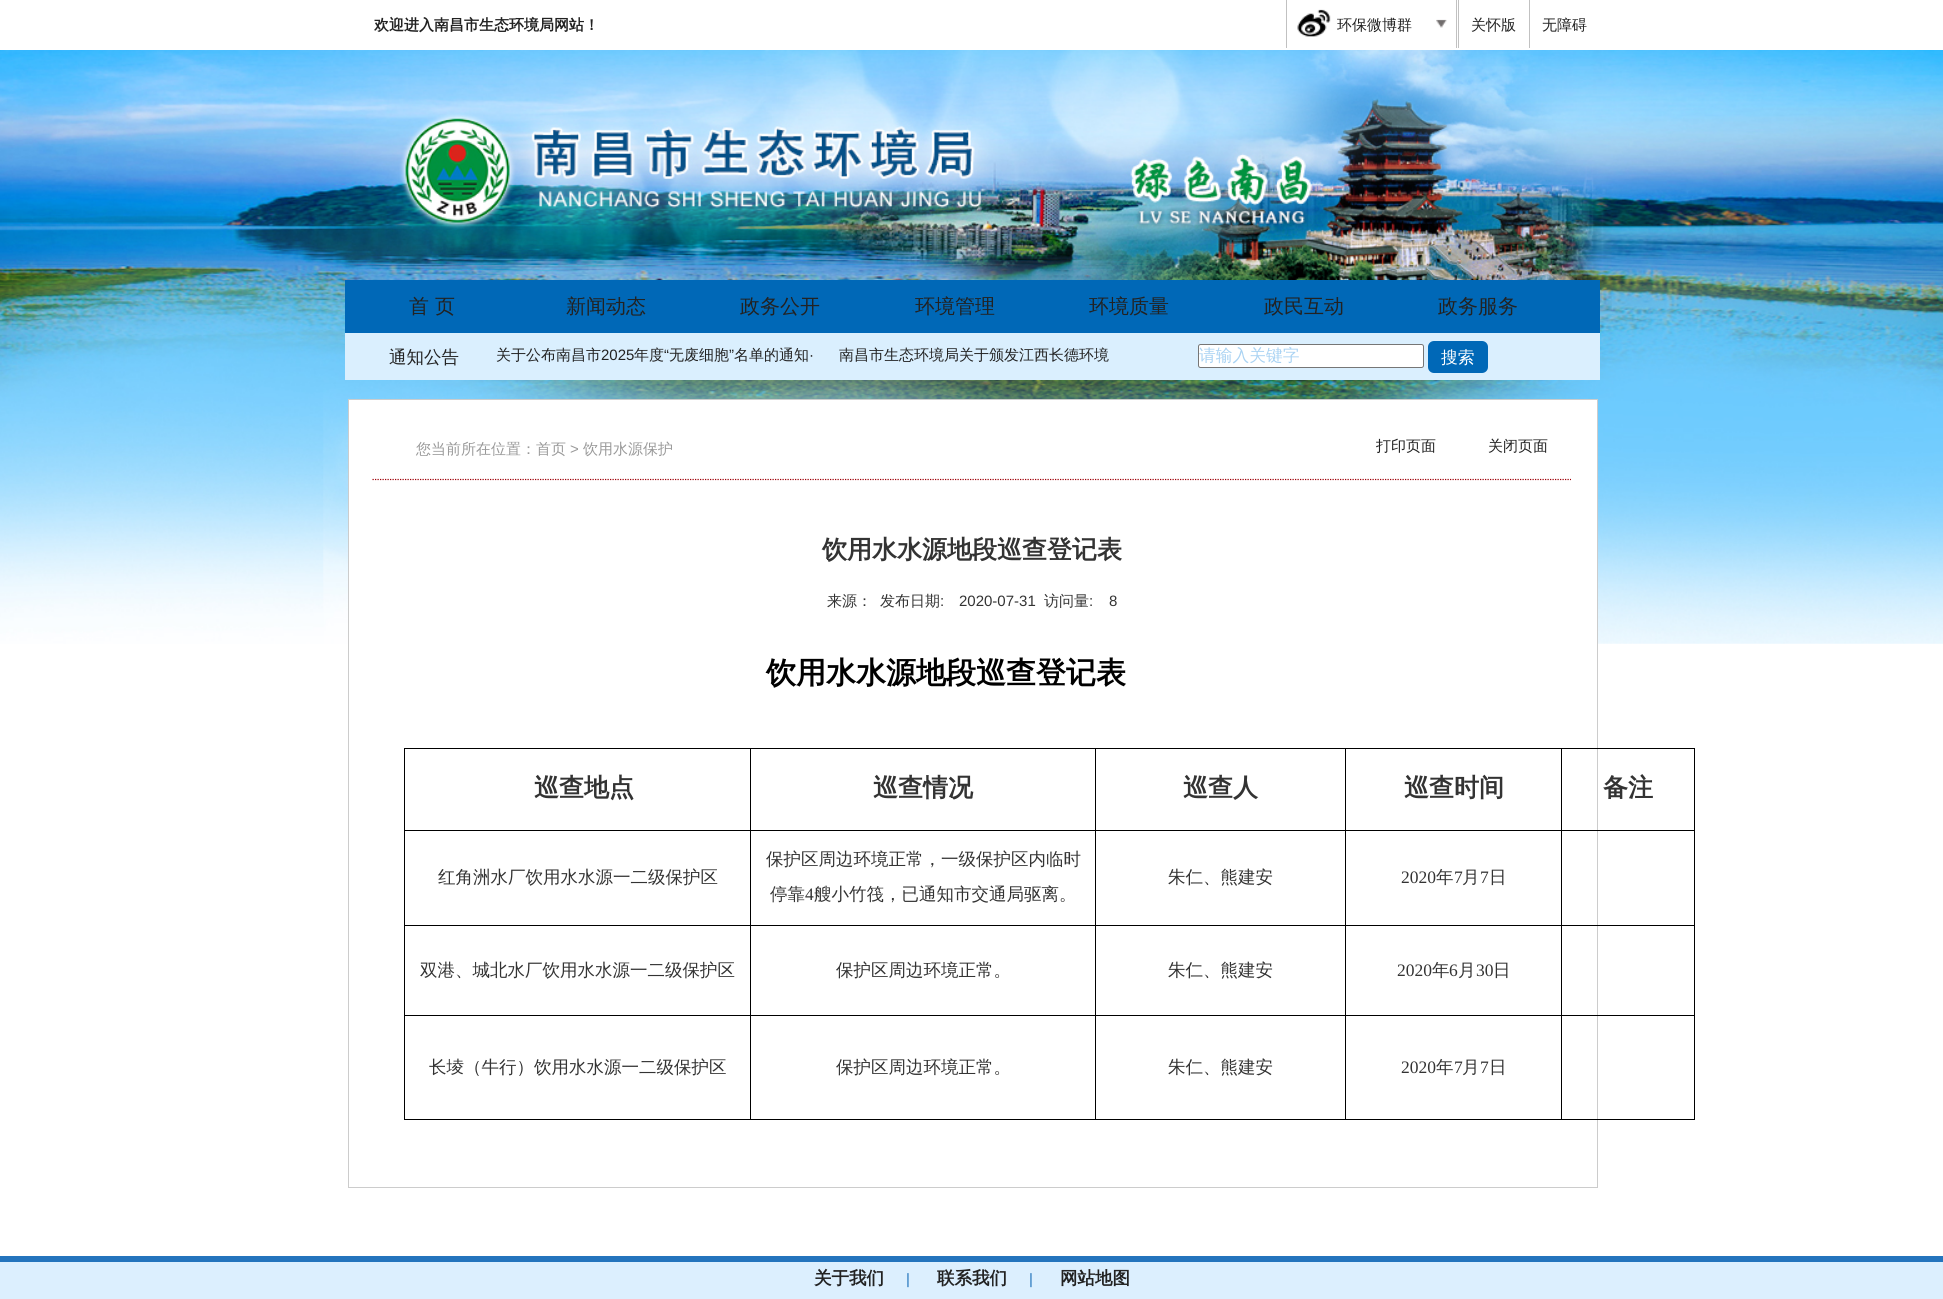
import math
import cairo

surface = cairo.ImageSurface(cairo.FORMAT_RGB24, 1943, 1299)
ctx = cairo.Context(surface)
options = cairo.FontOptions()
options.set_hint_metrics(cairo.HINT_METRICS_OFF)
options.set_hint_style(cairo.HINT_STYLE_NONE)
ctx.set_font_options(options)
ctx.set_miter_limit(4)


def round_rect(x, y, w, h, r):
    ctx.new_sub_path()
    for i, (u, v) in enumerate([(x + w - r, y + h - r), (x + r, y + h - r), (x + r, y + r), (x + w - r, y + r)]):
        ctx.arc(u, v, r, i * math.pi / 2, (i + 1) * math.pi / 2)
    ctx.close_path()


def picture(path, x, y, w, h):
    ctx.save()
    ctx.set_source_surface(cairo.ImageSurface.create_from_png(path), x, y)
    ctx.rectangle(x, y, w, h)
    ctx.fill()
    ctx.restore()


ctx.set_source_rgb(1, 1, 1)
ctx.paint()
picture("img1.png", 0, 50, 1943, 594)
ctx.select_font_face("WenQuanYi Zen Hei", cairo.FONT_SLANT_NORMAL, cairo.FONT_WEIGHT_BOLD)
ctx.set_font_size(15)
ctx.set_source_rgb(0.133, 0.133, 0.133)
ctx.move_to(374, 30)
ctx.show_text("欢迎进入南昌市生态环境局网站！")
picture("img2.png", 1297, 9, 150, 28)
ctx.set_source_rgb(0.757, 0.757, 0.757)
ctx.rectangle(1456, 0, 1, 48)
ctx.fill()
ctx.rectangle(1286, 0, 1, 48)
ctx.fill()
ctx.select_font_face("WenQuanYi Zen Hei Medium")
ctx.set_source_rgb(0.133, 0.133, 0.133)
ctx.move_to(1337, 30)
ctx.show_text("环保微博群")
ctx.set_source_rgb(0.757, 0.757, 0.757)
ctx.rectangle(1458, 0, 1, 48)
ctx.fill()
ctx.set_source_rgb(0.133, 0.133, 0.133)
ctx.move_to(1471, 30)
ctx.show_text("关怀版")
ctx.set_source_rgb(0.757, 0.757, 0.757)
ctx.rectangle(1529, 0, 1, 48)
ctx.fill()
ctx.set_source_rgb(0.133, 0.133, 0.133)
ctx.move_to(1542, 30)
ctx.show_text("无障碍")
ctx.set_source_rgb(0, 0.408, 0.718)
ctx.rectangle(345, 280, 1255, 53)
ctx.fill()
ctx.set_font_size(20)
ctx.set_source_rgb(0.133, 0.133, 0.133)
ctx.move_to(409, 313)
ctx.show_text("首 页")
ctx.move_to(566, 313)
ctx.show_text("新闻动态")
ctx.move_to(740, 313)
ctx.show_text("政务公开")
ctx.move_to(915, 313)
ctx.show_text("环境管理")
ctx.move_to(1089, 313)
ctx.show_text("环境质量")
ctx.move_to(1264, 313)
ctx.show_text("政民互动")
ctx.move_to(1438, 313)
ctx.show_text("政务服务")
ctx.set_source_rgb(0.855, 0.937, 0.996)
ctx.rectangle(345, 333, 1255, 47)
ctx.fill()
ctx.set_font_size(17.5)
ctx.set_source_rgb(0.133, 0.133, 0.133)
ctx.move_to(389, 363)
ctx.show_text("通知公告")
ctx.set_font_size(15)
ctx.move_to(496, 360)
ctx.show_text("关于公布南昌市")
ctx.select_font_face("Liberation Sans")
ctx.move_to(601, 360)
ctx.show_text("2025")
ctx.select_font_face("WenQuanYi Zen Hei Medium")
ctx.move_to(634, 360)
ctx.show_text("年度")
ctx.select_font_face("Liberation Sans")
ctx.move_to(664, 360)
ctx.show_text("“")
ctx.select_font_face("WenQuanYi Zen Hei Medium")
ctx.move_to(669, 360)
ctx.show_text("无废细胞")
ctx.select_font_face("Liberation Sans")
ctx.move_to(729, 360)
ctx.show_text("”")
ctx.select_font_face("WenQuanYi Zen Hei Medium")
ctx.move_to(734, 360)
ctx.show_text("名单的通知")
ctx.select_font_face("Liberation Sans")
ctx.move_to(809, 360)
ctx.show_text("·")
ctx.select_font_face("WenQuanYi Zen Hei Medium")
ctx.move_to(839, 360)
ctx.show_text("南昌市生态环境局关于颁发江西长德环境")
ctx.set_source_rgb(1, 1, 1)
round_rect(1198.5, 344.5, 225, 23, 2)
ctx.fill_preserve()
ctx.set_source_rgb(0.463, 0.463, 0.463)
ctx.set_line_width(1)
ctx.stroke()
ctx.set_font_size(16.75)
ctx.set_source_rgb(0.667, 0.827, 0.953)
ctx.move_to(1199, 361)
ctx.show_text("请输入关键字")
ctx.set_source_rgb(0, 0.408, 0.718)
round_rect(1428, 341, 60, 32, 6)
ctx.fill()
ctx.set_source_rgb(1, 1, 1)
ctx.move_to(1441, 363)
ctx.show_text("搜索")
ctx.rectangle(349, 400, 1248, 244)
ctx.fill()
ctx.rectangle(348.5, 399.5, 1249, 788)
ctx.set_source_rgb(0.8, 0.8, 0.8)
ctx.stroke()
ctx.new_path()
ctx.move_to(372.5, 479.5)
ctx.line_to(1571, 479.5)
ctx.set_source_rgb(0.624, 0, 0.031)
ctx.set_line_width(1.2)
ctx.set_dash([1.25, 1.25])
ctx.stroke()
ctx.set_font_size(15)
ctx.set_source_rgb(0.6, 0.6, 0.6)
ctx.move_to(416, 454)
ctx.show_text("您当前所在位置：首页")
ctx.select_font_face("Liberation Sans")
ctx.move_to(570, 454)
ctx.show_text(">")
ctx.select_font_face("WenQuanYi Zen Hei Medium")
ctx.move_to(583, 454)
ctx.show_text("饮用水源保护")
ctx.set_source_rgb(0.133, 0.133, 0.133)
ctx.move_to(1376, 451)
ctx.show_text("打印页面")
ctx.move_to(1488, 451)
ctx.show_text("关闭页面")
ctx.select_font_face("WenQuanYi Zen Hei", cairo.FONT_SLANT_NORMAL, cairo.FONT_WEIGHT_BOLD)
ctx.set_font_size(25)
ctx.set_source_rgb(0.2, 0.2, 0.2)
ctx.move_to(822, 558)
ctx.show_text("饮用水水源地段巡查登记表")
ctx.select_font_face("WenQuanYi Zen Hei Medium")
ctx.set_font_size(15)
ctx.move_to(827, 606)
ctx.show_text("来源：")
ctx.move_to(880, 606)
ctx.show_text("发布日期")
ctx.select_font_face("Liberation Sans")
ctx.move_to(940, 606)
ctx.show_text(":")
ctx.move_to(959, 606)
ctx.show_text("2020-07-31")
ctx.select_font_face("WenQuanYi Zen Hei Medium")
ctx.move_to(1044, 606)
ctx.show_text("访问量")
ctx.select_font_face("Liberation Sans")
ctx.move_to(1089, 606)
ctx.show_text(":")
ctx.move_to(1109, 606)
ctx.show_text("8")
ctx.select_font_face("WenQuanYi Zen Hei", cairo.FONT_SLANT_NORMAL, cairo.FONT_WEIGHT_BOLD)
ctx.set_font_size(30)
ctx.set_source_rgb(0, 0, 0)
ctx.move_to(766, 683)
ctx.show_text("饮用水水源地段巡查登记表")
ctx.rectangle(404, 748, 1291, 1)
ctx.fill()
ctx.rectangle(1694, 830, 1, 290)
ctx.fill()
ctx.rectangle(1694, 748, 1, 83)
ctx.fill()
ctx.rectangle(1561, 1119, 134, 1)
ctx.fill()
ctx.rectangle(1561, 1015, 1, 105)
ctx.fill()
ctx.rectangle(1561, 1015, 134, 1)
ctx.fill()
ctx.rectangle(1561, 925, 1, 91)
ctx.fill()
ctx.rectangle(1561, 925, 134, 1)
ctx.fill()
ctx.rectangle(1561, 830, 1, 96)
ctx.fill()
ctx.rectangle(1561, 830, 134, 1)
ctx.fill()
ctx.rectangle(1561, 748, 1, 83)
ctx.fill()
ctx.rectangle(1345, 1119, 218, 1)
ctx.fill()
ctx.rectangle(1345, 1015, 1, 105)
ctx.fill()
ctx.rectangle(1345, 1015, 218, 1)
ctx.fill()
ctx.rectangle(1345, 925, 1, 91)
ctx.fill()
ctx.rectangle(1345, 925, 218, 1)
ctx.fill()
ctx.rectangle(1345, 830, 1, 96)
ctx.fill()
ctx.rectangle(1345, 830, 218, 1)
ctx.fill()
ctx.rectangle(1345, 748, 1, 83)
ctx.fill()
ctx.rectangle(1095, 1119, 251, 1)
ctx.fill()
ctx.rectangle(1095, 1015, 1, 105)
ctx.fill()
ctx.rectangle(1095, 1015, 251, 1)
ctx.fill()
ctx.rectangle(1095, 925, 1, 91)
ctx.fill()
ctx.rectangle(1095, 925, 251, 1)
ctx.fill()
ctx.rectangle(1095, 830, 1, 96)
ctx.fill()
ctx.rectangle(1095, 830, 251, 1)
ctx.fill()
ctx.rectangle(1095, 748, 1, 83)
ctx.fill()
ctx.rectangle(750, 1119, 346, 1)
ctx.fill()
ctx.rectangle(750, 1015, 1, 105)
ctx.fill()
ctx.rectangle(750, 1015, 346, 1)
ctx.fill()
ctx.rectangle(750, 925, 1, 91)
ctx.fill()
ctx.rectangle(750, 925, 346, 1)
ctx.fill()
ctx.rectangle(750, 830, 1, 96)
ctx.fill()
ctx.rectangle(750, 830, 346, 1)
ctx.fill()
ctx.rectangle(750, 748, 1, 83)
ctx.fill()
ctx.rectangle(404, 1119, 347, 1)
ctx.fill()
ctx.rectangle(404, 1015, 1, 105)
ctx.fill()
ctx.rectangle(404, 1015, 347, 1)
ctx.fill()
ctx.rectangle(404, 925, 1, 91)
ctx.fill()
ctx.rectangle(404, 925, 347, 1)
ctx.fill()
ctx.rectangle(404, 830, 1, 96)
ctx.fill()
ctx.rectangle(404, 830, 347, 1)
ctx.fill()
ctx.rectangle(404, 748, 1, 83)
ctx.fill()
ctx.set_font_size(25)
ctx.set_source_rgb(0.2, 0.2, 0.2)
ctx.move_to(534, 796)
ctx.show_text("巡查地点")
ctx.move_to(873, 796)
ctx.show_text("巡查情况")
ctx.move_to(1183, 796)
ctx.show_text("巡查人")
ctx.move_to(1404, 796)
ctx.show_text("巡查时间")
ctx.move_to(1603, 796)
ctx.show_text("备注")
ctx.select_font_face("WenQuanYi Zen Hei Medium")
ctx.set_font_size(17.5)
ctx.move_to(438, 883)
ctx.show_text("红角洲水厂饮用水水源一二级保护区")
ctx.move_to(766, 865)
ctx.show_text("保护区周边环境正常，一级保护区内临时")
ctx.move_to(770, 900)
ctx.show_text("停靠")
ctx.select_font_face("Liberation Serif")
ctx.move_to(805, 900)
ctx.show_text("4")
ctx.select_font_face("WenQuanYi Zen Hei Medium")
ctx.move_to(814, 900)
ctx.show_text("艘小竹筏，已通知市交通局驱离。")
ctx.move_to(1168, 883)
ctx.show_text("朱仁、熊建安")
ctx.select_font_face("Liberation Serif")
ctx.move_to(1401, 883)
ctx.show_text("2020")
ctx.select_font_face("WenQuanYi Zen Hei Medium")
ctx.move_to(1436, 883)
ctx.show_text("年")
ctx.select_font_face("Liberation Serif")
ctx.move_to(1454, 883)
ctx.show_text("7")
ctx.select_font_face("WenQuanYi Zen Hei Medium")
ctx.move_to(1462, 883)
ctx.show_text("月")
ctx.select_font_face("Liberation Serif")
ctx.move_to(1480, 883)
ctx.show_text("7")
ctx.select_font_face("WenQuanYi Zen Hei Medium")
ctx.move_to(1489, 883)
ctx.show_text("日")
ctx.move_to(420, 976)
ctx.show_text("双港、城北水厂饮用水水源一二级保护区")
ctx.move_to(836, 976)
ctx.show_text("保护区周边环境正常。")
ctx.move_to(1168, 976)
ctx.show_text("朱仁、熊建安")
ctx.select_font_face("Liberation Serif")
ctx.move_to(1397, 976)
ctx.show_text("2020")
ctx.select_font_face("WenQuanYi Zen Hei Medium")
ctx.move_to(1432, 976)
ctx.show_text("年")
ctx.select_font_face("Liberation Serif")
ctx.move_to(1449, 976)
ctx.show_text("6")
ctx.select_font_face("WenQuanYi Zen Hei Medium")
ctx.move_to(1458, 976)
ctx.show_text("月")
ctx.select_font_face("Liberation Serif")
ctx.move_to(1476, 976)
ctx.show_text("30")
ctx.select_font_face("WenQuanYi Zen Hei Medium")
ctx.move_to(1493, 976)
ctx.show_text("日")
ctx.move_to(429, 1073)
ctx.show_text("长堎（牛行）饮用水水源一二级保护区")
ctx.move_to(836, 1073)
ctx.show_text("保护区周边环境正常。")
ctx.move_to(1168, 1073)
ctx.show_text("朱仁、熊建安")
ctx.select_font_face("Liberation Serif")
ctx.move_to(1401, 1073)
ctx.show_text("2020")
ctx.select_font_face("WenQuanYi Zen Hei Medium")
ctx.move_to(1436, 1073)
ctx.show_text("年")
ctx.select_font_face("Liberation Serif")
ctx.move_to(1454, 1073)
ctx.show_text("7")
ctx.select_font_face("WenQuanYi Zen Hei Medium")
ctx.move_to(1462, 1073)
ctx.show_text("月")
ctx.select_font_face("Liberation Serif")
ctx.move_to(1480, 1073)
ctx.show_text("7")
ctx.select_font_face("WenQuanYi Zen Hei Medium")
ctx.move_to(1489, 1073)
ctx.show_text("日")
ctx.set_source_rgb(0.863, 0.937, 0.996)
ctx.rectangle(0, 1262, 1943, 37)
ctx.fill()
ctx.set_source_rgb(0.141, 0.455, 0.741)
ctx.rectangle(0, 1256, 1943, 6)
ctx.fill()
ctx.select_font_face("WenQuanYi Zen Hei", cairo.FONT_SLANT_NORMAL, cairo.FONT_WEIGHT_BOLD)
ctx.set_source_rgb(0.133, 0.133, 0.133)
ctx.move_to(814, 1284)
ctx.show_text("关于我们")
ctx.select_font_face("Liberation Sans")
ctx.set_font_size(15)
ctx.set_source_rgb(0.141, 0.459, 0.737)
ctx.move_to(906, 1284)
ctx.show_text("|")
ctx.select_font_face("WenQuanYi Zen Hei", cairo.FONT_SLANT_NORMAL, cairo.FONT_WEIGHT_BOLD)
ctx.set_font_size(17.5)
ctx.set_source_rgb(0.133, 0.133, 0.133)
ctx.move_to(937, 1284)
ctx.show_text("联系我们")
ctx.select_font_face("Liberation Sans")
ctx.set_font_size(15)
ctx.set_source_rgb(0.141, 0.459, 0.737)
ctx.move_to(1029, 1284)
ctx.show_text("|")
ctx.select_font_face("WenQuanYi Zen Hei", cairo.FONT_SLANT_NORMAL, cairo.FONT_WEIGHT_BOLD)
ctx.set_font_size(17.5)
ctx.set_source_rgb(0.133, 0.133, 0.133)
ctx.move_to(1060, 1284)
ctx.show_text("网站地图")
surface.write_to_png("page.png")
